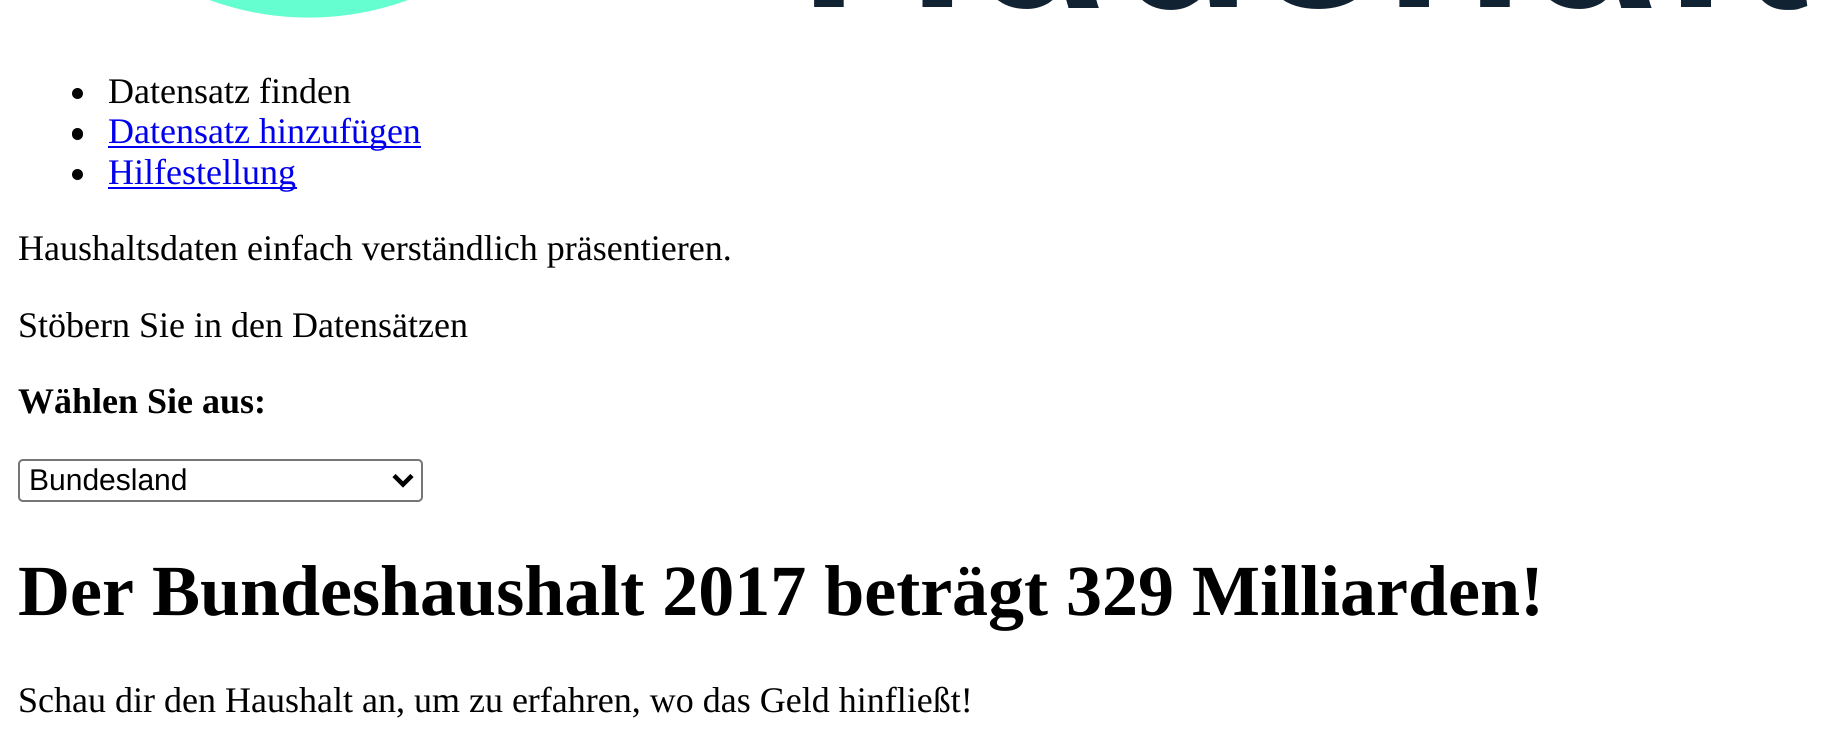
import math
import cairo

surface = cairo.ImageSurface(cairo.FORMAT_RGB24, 1828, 736)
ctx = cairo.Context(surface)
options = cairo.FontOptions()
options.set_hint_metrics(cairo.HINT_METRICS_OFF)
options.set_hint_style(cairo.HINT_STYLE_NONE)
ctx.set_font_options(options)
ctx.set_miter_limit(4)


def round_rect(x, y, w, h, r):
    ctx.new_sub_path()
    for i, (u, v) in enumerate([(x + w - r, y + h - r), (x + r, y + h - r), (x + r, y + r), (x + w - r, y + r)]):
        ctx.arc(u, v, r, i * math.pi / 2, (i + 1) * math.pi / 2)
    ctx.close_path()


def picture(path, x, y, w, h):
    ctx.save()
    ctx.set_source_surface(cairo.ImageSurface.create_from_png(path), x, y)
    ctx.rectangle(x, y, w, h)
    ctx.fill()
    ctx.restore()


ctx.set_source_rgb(1, 1, 1)
ctx.paint()
picture("img1.png", 209, 0, 1599, 18)
ctx.set_source_rgb(0, 0, 0)
ctx.arc(77.5, 93.5, 5.5, 0, 2 * math.pi)
ctx.fill()
ctx.select_font_face("Liberation Serif")
ctx.set_font_size(36)
ctx.move_to(108, 103)
ctx.show_text("Datensatz finden")
round_rect(72, 128, 11, 12, 5.5)
ctx.fill()
ctx.set_source_rgb(0, 0, 0.933)
ctx.rectangle(108, 146, 313, 2)
ctx.fill()
ctx.move_to(108, 143)
ctx.show_text("Datensatz hinzufügen")
ctx.set_source_rgb(0, 0, 0)
ctx.new_path()
ctx.arc(77.5, 174.5, 5.5, 0, 2 * math.pi)
ctx.fill()
ctx.set_source_rgb(0, 0, 0.933)
ctx.rectangle(108, 187, 189, 2)
ctx.fill()
ctx.move_to(108, 184)
ctx.show_text("Hilfestellung")
ctx.set_source_rgb(0, 0, 0)
ctx.move_to(18, 260)
ctx.show_text("Haushaltsdaten einfach verständlich präsentieren.")
ctx.move_to(18, 337)
ctx.show_text("Stöbern Sie in den Datensätzen")
ctx.select_font_face("Liberation Serif", cairo.FONT_SLANT_NORMAL, cairo.FONT_WEIGHT_BOLD)
ctx.move_to(18, 413)
ctx.show_text("Wählen Sie aus:")
round_rect(19, 460, 403, 41, 4)
ctx.set_source_rgb(0.463, 0.463, 0.463)
ctx.stroke()
ctx.new_path()
ctx.move_to(394, 475.5)
ctx.line_to(403, 484.5)
ctx.line_to(412, 475.5)
ctx.set_source_rgb(0, 0, 0)
ctx.set_line_width(4.5)
ctx.stroke()
ctx.select_font_face("Liberation Sans")
ctx.set_font_size(30)
ctx.move_to(29, 490)
ctx.show_text("Bundesland")
ctx.select_font_face("Liberation Serif", cairo.FONT_SLANT_NORMAL, cairo.FONT_WEIGHT_BOLD)
ctx.set_font_size(72)
ctx.move_to(18, 615)
ctx.show_text("Der Bundeshaushalt 2017 beträgt 329 Milliarden!")
ctx.select_font_face("Liberation Serif")
ctx.set_font_size(36)
ctx.move_to(18, 712)
ctx.show_text("Schau dir den Haushalt an, um zu erfahren, wo das Geld hinfließt!")
surface.write_to_png("page.png")
